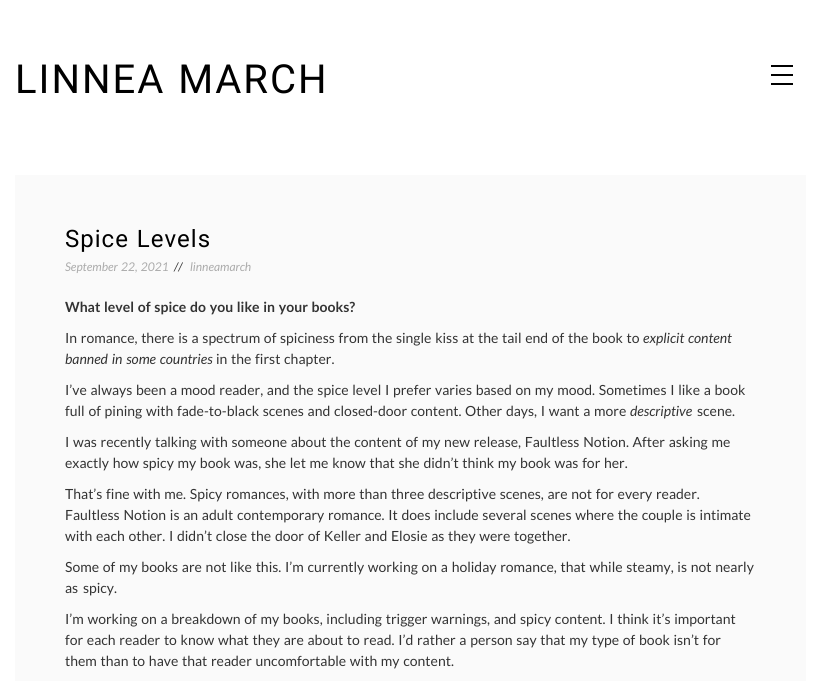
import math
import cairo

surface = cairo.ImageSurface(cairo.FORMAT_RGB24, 821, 681)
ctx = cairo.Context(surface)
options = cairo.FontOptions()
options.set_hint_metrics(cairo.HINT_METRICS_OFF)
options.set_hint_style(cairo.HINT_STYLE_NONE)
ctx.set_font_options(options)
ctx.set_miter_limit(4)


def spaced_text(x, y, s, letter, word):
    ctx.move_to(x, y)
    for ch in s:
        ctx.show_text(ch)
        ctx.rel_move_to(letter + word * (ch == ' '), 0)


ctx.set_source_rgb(1, 1, 1)
ctx.paint()
ctx.select_font_face("Roboto")
ctx.set_font_size(40)
ctx.set_source_rgb(0, 0, 0)
spaced_text(15, 93, "LINNEA MARCH", 2, 1)
ctx.rectangle(771, 65, 22, 2)
ctx.fill()
ctx.rectangle(771, 74, 22, 2)
ctx.fill()
ctx.rectangle(771, 83, 22, 2)
ctx.fill()
ctx.set_source_rgb(0.98, 0.98, 0.98)
ctx.rectangle(15, 175, 791, 506)
ctx.fill()
ctx.set_font_size(24)
ctx.set_source_rgb(0, 0, 0)
spaced_text(65, 247, "Spice Levels", 1, 1)
ctx.select_font_face("Lato", cairo.FONT_SLANT_ITALIC)
ctx.set_font_size(12)
ctx.set_source_rgb(0.671, 0.671, 0.671)
spaced_text(65, 271, "September 22, 2021", 0, 1)
ctx.set_source_rgb(0.2, 0.2, 0.2)
ctx.move_to(174, 271)
ctx.show_text("//")
ctx.set_source_rgb(0.671, 0.671, 0.671)
ctx.move_to(190, 271)
ctx.show_text("linneamarch")
ctx.select_font_face("Lato", cairo.FONT_SLANT_NORMAL, cairo.FONT_WEIGHT_BOLD)
ctx.set_font_size(14)
ctx.set_source_rgb(0.2, 0.2, 0.2)
spaced_text(65, 312, "What level of spice do you like in your books?", 0, 1)
ctx.select_font_face("Lato")
spaced_text(65, 343, "In romance, there is a spectrum of spiciness from the single kiss at the tail end of the book to", 0, 1)
ctx.select_font_face("Lato", cairo.FONT_SLANT_ITALIC)
spaced_text(643, 343, "explicit content", 0, 1)
spaced_text(65, 364, "banned in some countries", 0, 1)
ctx.select_font_face("Lato")
spaced_text(216, 364, "in the first chapter.", 0, 1)
spaced_text(65, 395, "I’ve always been a mood reader, and the spice level I prefer varies based on my mood. Sometimes I like a book", 0, 1)
spaced_text(65, 416, "full of pining with fade-to-black scenes and closed-door content. Other days, I want a more", 0, 1)
ctx.select_font_face("Lato", cairo.FONT_SLANT_ITALIC)
ctx.move_to(630, 416)
ctx.show_text("descriptive")
ctx.select_font_face("Lato")
ctx.move_to(697, 416)
ctx.show_text("scene.")
spaced_text(65, 447, "I was recently talking with someone about the content of my new release, Faultless Notion. After asking me", 0, 1)
spaced_text(65, 468, "exactly how spicy my book was, she let me know that she didn’t think my book was for her.", 0, 1)
spaced_text(65, 499, "That’s fine with me. Spicy romances, with more than three descriptive scenes, are not for every reader.", 0, 1)
spaced_text(65, 520, "Faultless Notion is an adult contemporary romance. It does include several scenes where the couple is intimate", 0, 1)
spaced_text(65, 541, "with each other. I didn’t close the door of Keller and Elosie as they were together.", 0, 1)
spaced_text(65, 572, "Some of my books are not like this. I’m currently working on a holiday romance, that while steamy, is not nearly", 0, 1)
spaced_text(65, 593, "as spicy.", 0, 2)
spaced_text(65, 624, "I’m working on a breakdown of my books, including trigger warnings, and spicy content. I think it’s important", 0, 1)
spaced_text(65, 645, "for each reader to know what they are about to read. I’d rather a person say that my type of book isn’t for", 0, 1)
spaced_text(65, 666, "them than to have that reader uncomfortable with my content.", 0, 1)
surface.write_to_png("page.png")
